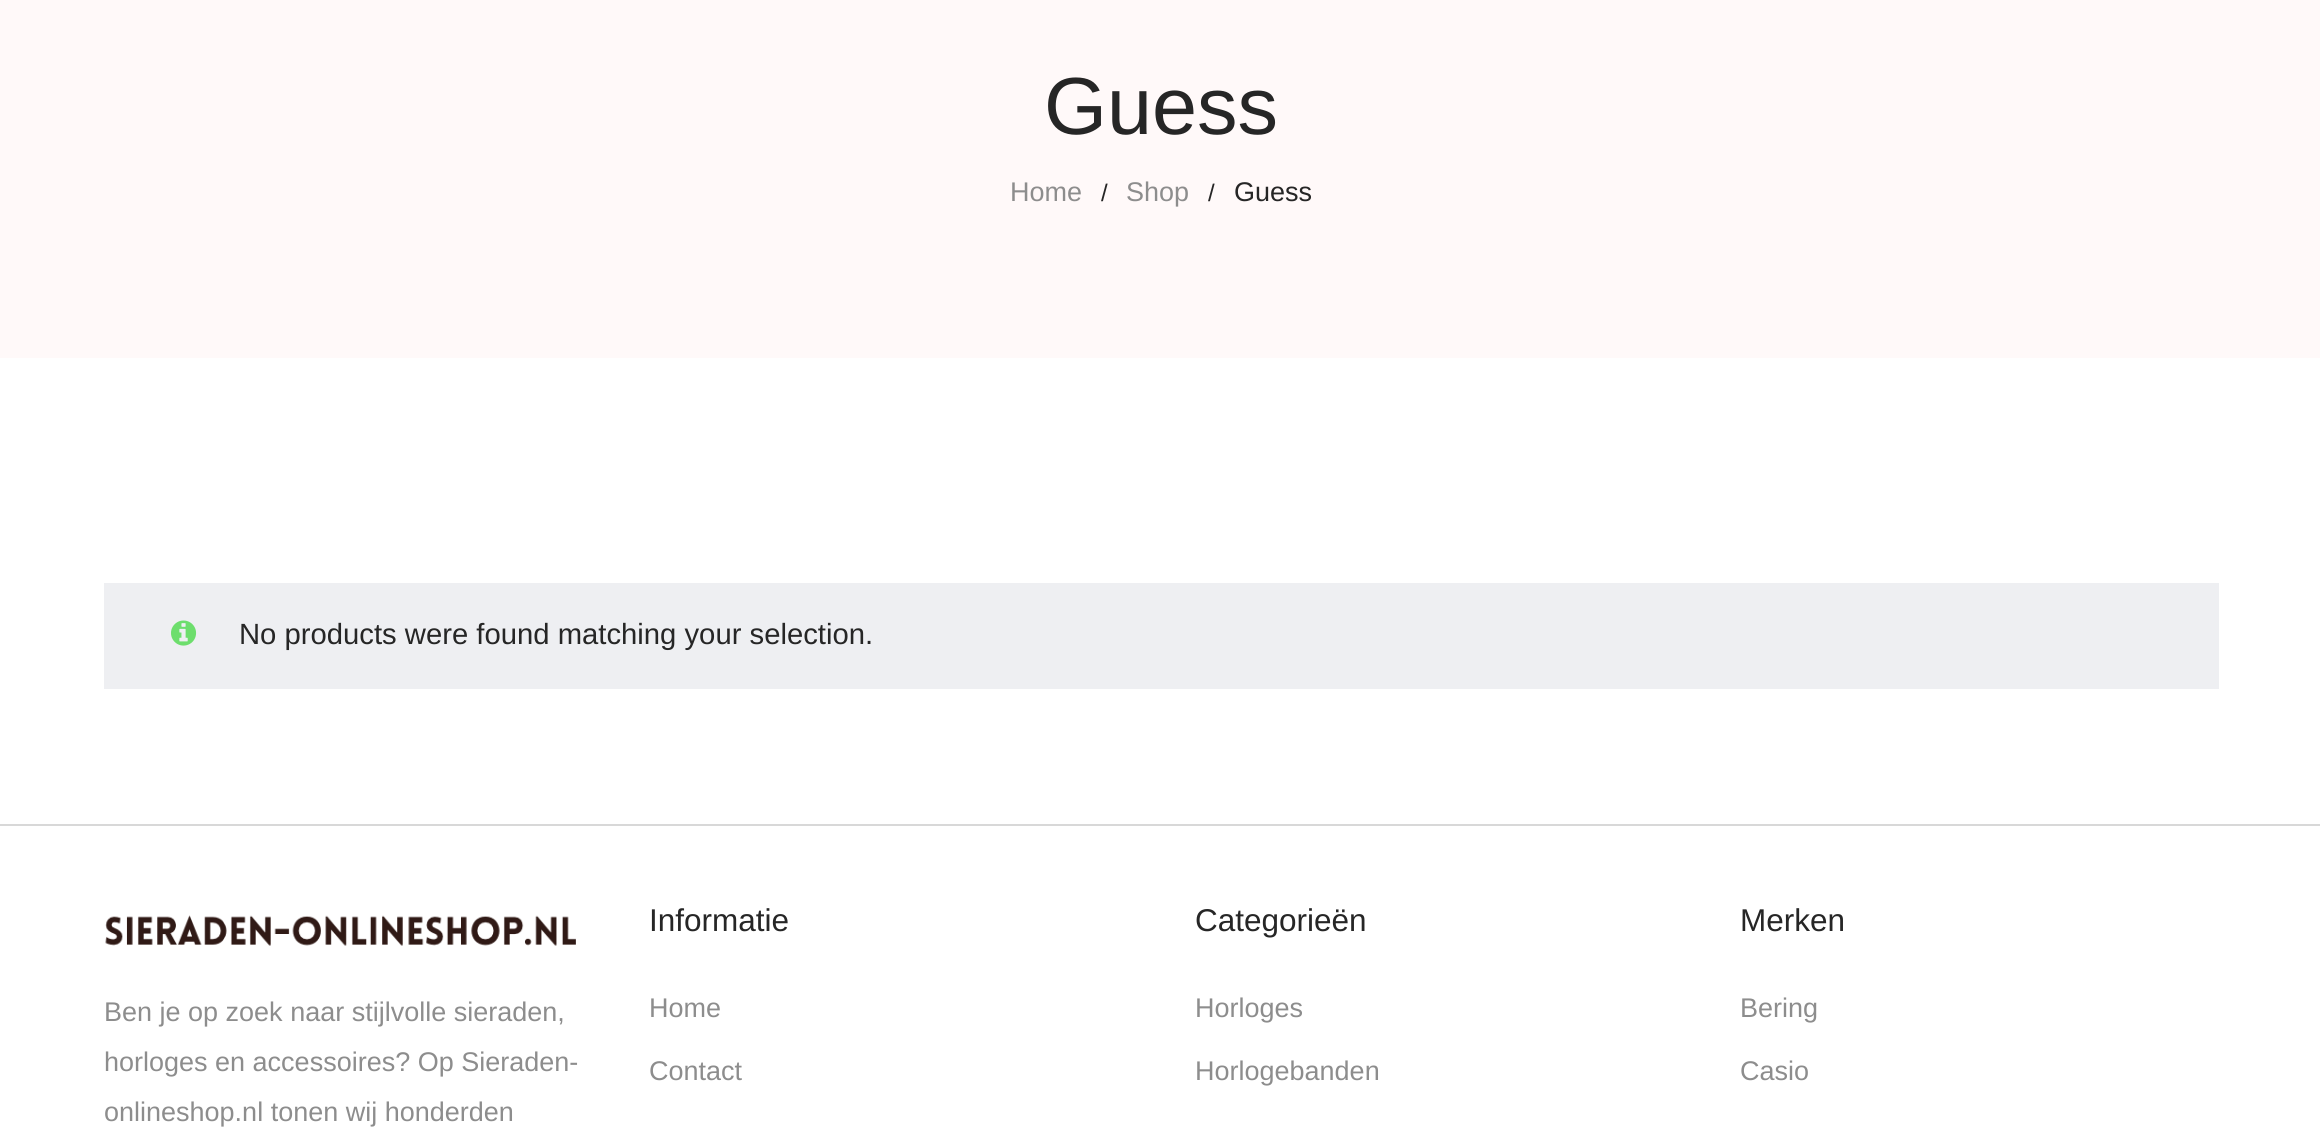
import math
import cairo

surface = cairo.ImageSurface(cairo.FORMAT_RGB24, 2320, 1132)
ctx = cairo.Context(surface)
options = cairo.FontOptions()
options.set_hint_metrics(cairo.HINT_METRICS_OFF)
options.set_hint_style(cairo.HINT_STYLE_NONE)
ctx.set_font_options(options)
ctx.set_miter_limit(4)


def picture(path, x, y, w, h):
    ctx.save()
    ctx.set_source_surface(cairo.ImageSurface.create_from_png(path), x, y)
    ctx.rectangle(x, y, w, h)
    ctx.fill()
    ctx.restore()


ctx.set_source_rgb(1, 1, 1)
ctx.paint()
ctx.set_source_rgb(1, 0.976, 0.976)
ctx.rectangle(0, 0, 2320, 358)
ctx.fill()
ctx.select_font_face("Liberation Sans")
ctx.set_font_size(81)
ctx.set_source_rgb(0.149, 0.149, 0.149)
ctx.move_to(1044, 134)
ctx.show_text("Guess")
ctx.set_font_size(27)
ctx.set_source_rgb(0.553, 0.553, 0.553)
ctx.move_to(1010, 201)
ctx.show_text("Home")
ctx.set_font_size(24)
ctx.set_source_rgb(0.149, 0.149, 0.149)
ctx.move_to(1101, 201)
ctx.show_text("/")
ctx.set_font_size(27)
ctx.set_source_rgb(0.553, 0.553, 0.553)
ctx.move_to(1126, 201)
ctx.show_text("Shop")
ctx.set_font_size(24)
ctx.set_source_rgb(0.149, 0.149, 0.149)
ctx.move_to(1208, 201)
ctx.show_text("/")
ctx.set_font_size(27)
ctx.move_to(1234, 201)
ctx.show_text("Guess")
ctx.set_source_rgb(0.933, 0.937, 0.949)
ctx.rectangle(104, 583, 2115, 106)
ctx.fill()
picture("img1.png", 171, 620, 26, 26)
ctx.set_font_size(29.25)
ctx.set_source_rgb(0.149, 0.149, 0.149)
ctx.move_to(239, 644)
ctx.show_text("No products were found matching your selection.")
ctx.set_source_rgb(0.847, 0.847, 0.847)
ctx.rectangle(0, 824, 2320, 2)
ctx.fill()
picture("img2.png", 105, 915, 471, 31)
ctx.set_font_size(27)
ctx.set_source_rgb(0.553, 0.553, 0.553)
ctx.move_to(104, 1021)
ctx.show_text("Ben je op zoek naar stijlvolle sieraden,")
ctx.move_to(104, 1071)
ctx.show_text("horloges en accessoires? Op Sieraden-")
ctx.move_to(104, 1121)
ctx.show_text("onlineshop.nl tonen wij honderden")
ctx.set_font_size(31.5)
ctx.set_source_rgb(0.149, 0.149, 0.149)
ctx.move_to(649, 931)
ctx.show_text("Informatie")
ctx.set_font_size(27)
ctx.set_source_rgb(0.553, 0.553, 0.553)
ctx.move_to(649, 1017)
ctx.show_text("Home")
ctx.move_to(649, 1080)
ctx.show_text("Contact")
ctx.set_font_size(31.5)
ctx.set_source_rgb(0.149, 0.149, 0.149)
ctx.move_to(1195, 931)
ctx.show_text("Categorieën")
ctx.set_font_size(27)
ctx.set_source_rgb(0.553, 0.553, 0.553)
ctx.move_to(1195, 1017)
ctx.show_text("Horloges")
ctx.move_to(1195, 1080)
ctx.show_text("Horlogebanden")
ctx.set_font_size(31.5)
ctx.set_source_rgb(0.149, 0.149, 0.149)
ctx.move_to(1740, 931)
ctx.show_text("Merken")
ctx.set_font_size(27)
ctx.set_source_rgb(0.553, 0.553, 0.553)
ctx.move_to(1740, 1017)
ctx.show_text("Bering")
ctx.move_to(1740, 1080)
ctx.show_text("Casio")
surface.write_to_png("page.png")
